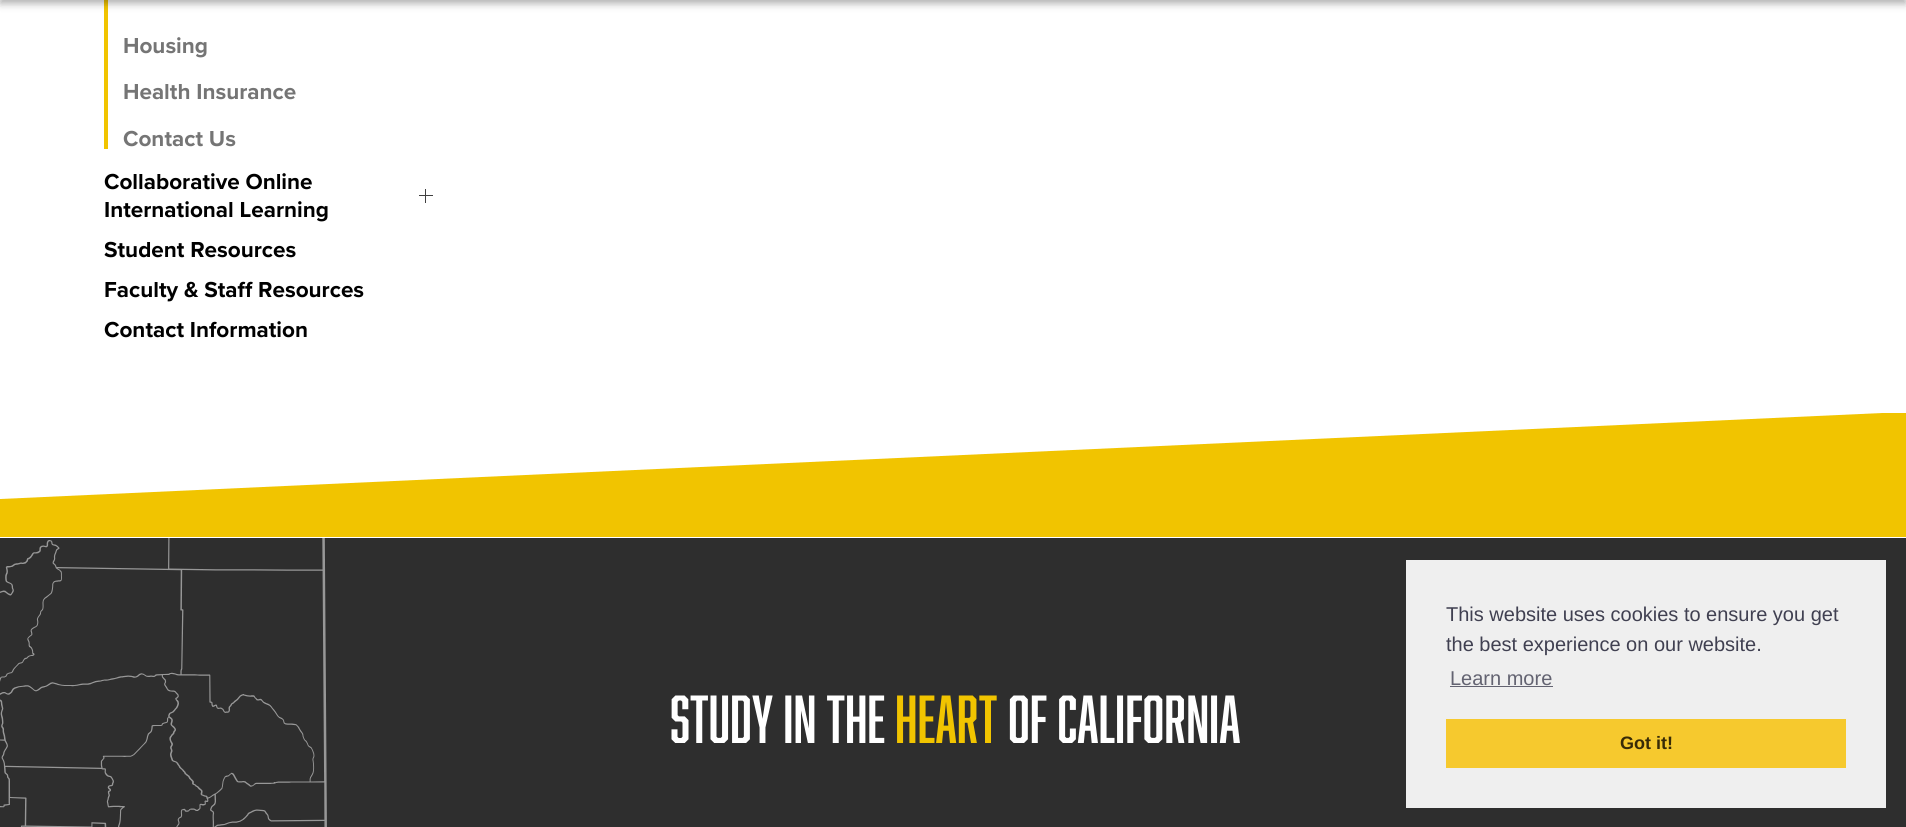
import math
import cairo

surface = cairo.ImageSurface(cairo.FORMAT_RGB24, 1906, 827)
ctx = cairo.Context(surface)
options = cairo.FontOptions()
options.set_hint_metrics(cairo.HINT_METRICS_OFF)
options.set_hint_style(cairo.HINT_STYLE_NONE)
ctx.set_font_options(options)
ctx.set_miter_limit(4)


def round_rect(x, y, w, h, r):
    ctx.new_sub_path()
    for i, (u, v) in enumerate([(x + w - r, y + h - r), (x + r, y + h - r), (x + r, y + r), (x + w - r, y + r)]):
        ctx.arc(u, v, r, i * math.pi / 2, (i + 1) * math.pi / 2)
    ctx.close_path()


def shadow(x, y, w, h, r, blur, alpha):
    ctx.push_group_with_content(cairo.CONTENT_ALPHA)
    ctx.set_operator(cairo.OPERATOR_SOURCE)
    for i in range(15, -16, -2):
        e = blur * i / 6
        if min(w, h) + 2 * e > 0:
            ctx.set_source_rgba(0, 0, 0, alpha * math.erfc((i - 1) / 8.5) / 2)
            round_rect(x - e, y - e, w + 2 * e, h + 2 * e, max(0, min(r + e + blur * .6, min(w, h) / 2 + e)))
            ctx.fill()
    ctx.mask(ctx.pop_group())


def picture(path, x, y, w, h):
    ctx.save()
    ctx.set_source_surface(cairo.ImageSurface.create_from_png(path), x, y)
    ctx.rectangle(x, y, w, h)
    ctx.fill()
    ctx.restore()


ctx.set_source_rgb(1, 1, 1)
ctx.paint()
ctx.set_source_rgb(0.945, 0.769, 0)
ctx.rectangle(104, 0, 4, 149)
ctx.fill()
ctx.set_source_rgb(0, 0, 0)
shadow(0, -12, 1906, 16, 0, 4, 0.25)
shadow(0, -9, 1906, 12, 0, 3, 0.07)
ctx.select_font_face("Proxima Nova", cairo.FONT_SLANT_NORMAL, cairo.FONT_WEIGHT_BOLD)
ctx.set_font_size(22.5)
ctx.set_source_rgb(0.459, 0.459, 0.459)
ctx.move_to(123, 53)
ctx.show_text("Housing")
ctx.move_to(123, 99)
ctx.show_text("Health Insurance")
ctx.move_to(123, 146)
ctx.show_text("Contact Us")
ctx.set_source_rgb(0, 0, 0)
ctx.move_to(104, 189)
ctx.show_text("Collaborative Online")
ctx.move_to(104, 217)
ctx.show_text("International Learning")
ctx.set_source_rgb(0.251, 0.251, 0.251)
ctx.rectangle(419, 195, 14, 1)
ctx.fill()
ctx.rectangle(425, 189, 1, 14)
ctx.fill()
ctx.set_source_rgb(0, 0, 0)
ctx.move_to(104, 257)
ctx.show_text("Student Resources")
ctx.move_to(104, 297)
ctx.show_text("Faculty & Staff Resources")
ctx.move_to(104, 337)
ctx.show_text("Contact Information")
ctx.set_source_rgb(0.18, 0.18, 0.18)
ctx.rectangle(0, 538, 1906, 289)
ctx.fill()
ctx.set_source_rgb(0.945, 0.769, 0)
ctx.new_path()
ctx.move_to(0, 499)
ctx.line_to(0, 537)
ctx.line_to(1906, 537)
ctx.line_to(1906, 413)
ctx.line_to(1882, 413)
ctx.close_path()
ctx.fill()
picture("img1.png", 0, 538, 327, 289)
ctx.select_font_face("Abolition")
ctx.set_font_size(62.5)
ctx.set_source_rgb(1, 1, 1)
ctx.move_to(670, 743)
ctx.show_text("STUDY IN THE")
ctx.set_source_rgb(0.945, 0.769, 0)
ctx.move_to(895, 743)
ctx.show_text("HEART")
ctx.set_source_rgb(1, 1, 1)
ctx.move_to(1008, 743)
ctx.show_text("OF CALIFORNIA")
ctx.set_source_rgb(0.937, 0.937, 0.937)
ctx.rectangle(1406, 560, 480, 248)
ctx.fill()
ctx.select_font_face("Liberation Sans")
ctx.set_font_size(20)
ctx.set_source_rgb(0.251, 0.251, 0.318)
ctx.move_to(1446, 621)
ctx.show_text("This website uses cookies to ensure you get")
ctx.move_to(1446, 651)
ctx.show_text("the best experience on our website.")
ctx.set_source_rgb(0.388, 0.388, 0.443)
ctx.move_to(1450, 685)
ctx.show_text("Learn more")
ctx.rectangle(1450, 686, 103, 1)
ctx.fill()
ctx.set_source_rgb(0.961, 0.788, 0.18)
ctx.rectangle(1446, 719, 400, 49)
ctx.fill()
ctx.select_font_face("Liberation Sans", cairo.FONT_SLANT_NORMAL, cairo.FONT_WEIGHT_BOLD)
ctx.set_font_size(18)
ctx.set_source_rgb(0.22, 0.169, 0.031)
ctx.move_to(1620, 749)
ctx.show_text("Got it!")
surface.write_to_png("page.png")
